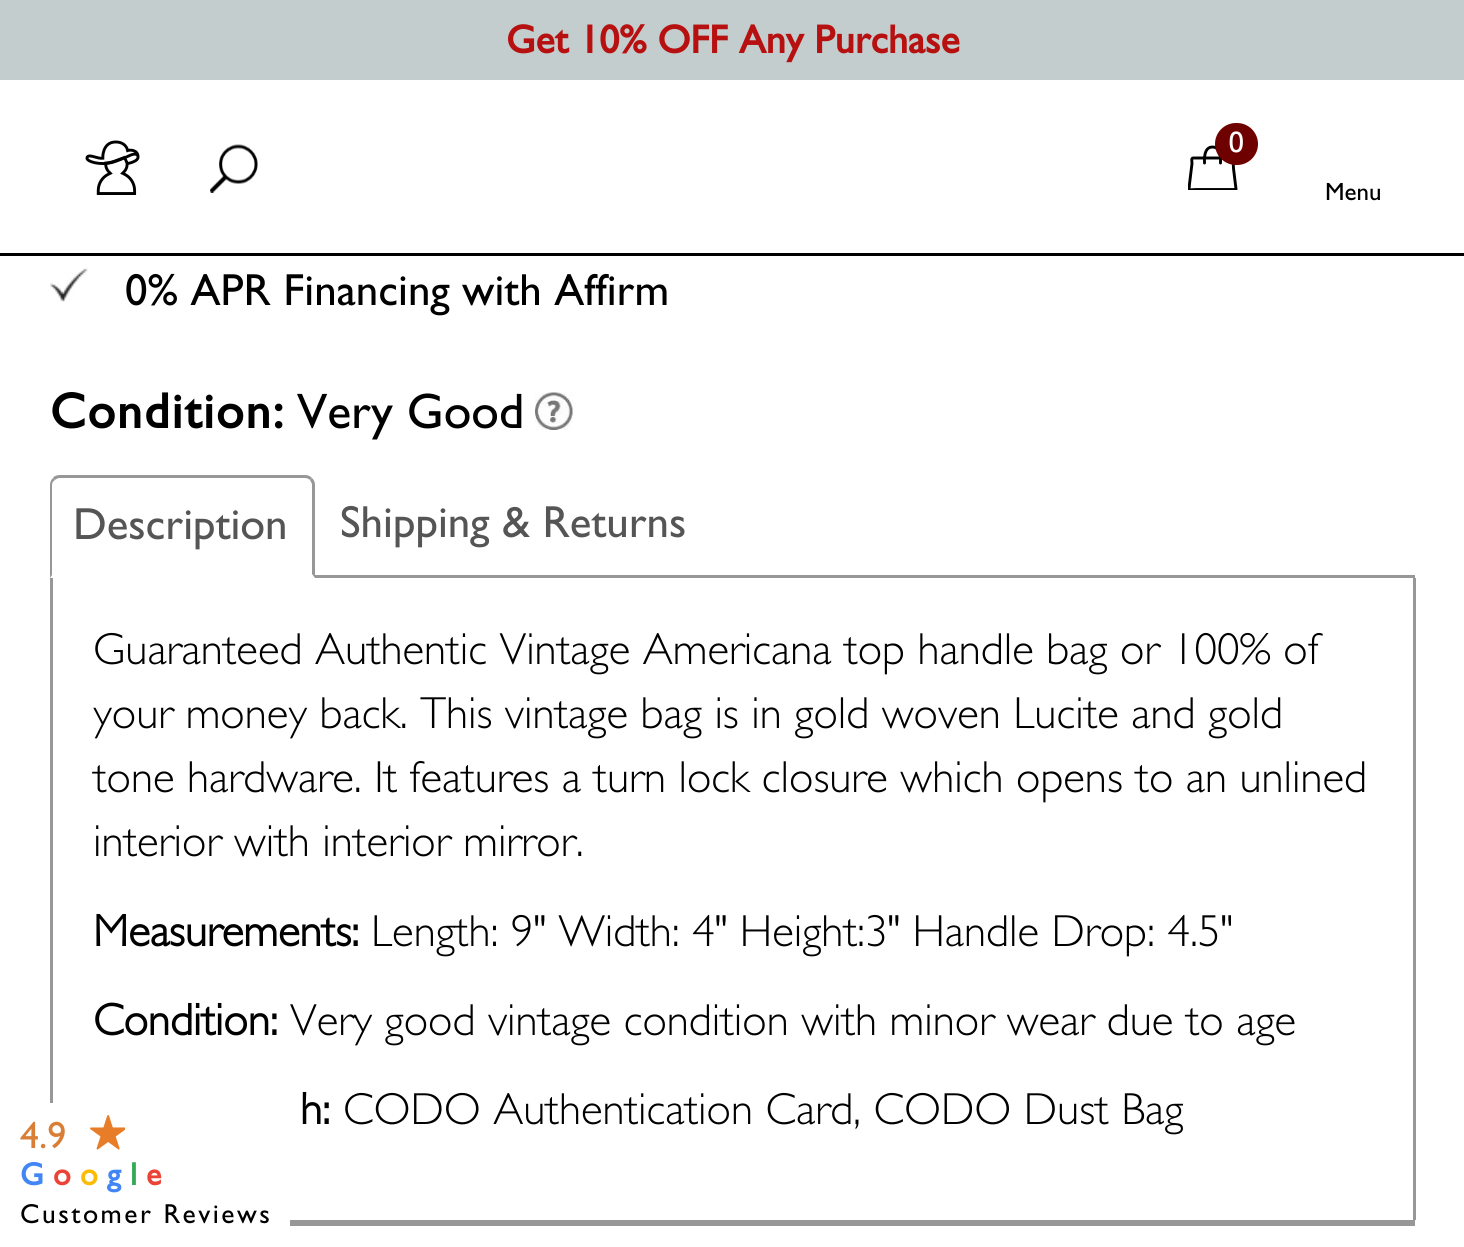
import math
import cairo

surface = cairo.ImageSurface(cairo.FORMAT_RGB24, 1464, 1247)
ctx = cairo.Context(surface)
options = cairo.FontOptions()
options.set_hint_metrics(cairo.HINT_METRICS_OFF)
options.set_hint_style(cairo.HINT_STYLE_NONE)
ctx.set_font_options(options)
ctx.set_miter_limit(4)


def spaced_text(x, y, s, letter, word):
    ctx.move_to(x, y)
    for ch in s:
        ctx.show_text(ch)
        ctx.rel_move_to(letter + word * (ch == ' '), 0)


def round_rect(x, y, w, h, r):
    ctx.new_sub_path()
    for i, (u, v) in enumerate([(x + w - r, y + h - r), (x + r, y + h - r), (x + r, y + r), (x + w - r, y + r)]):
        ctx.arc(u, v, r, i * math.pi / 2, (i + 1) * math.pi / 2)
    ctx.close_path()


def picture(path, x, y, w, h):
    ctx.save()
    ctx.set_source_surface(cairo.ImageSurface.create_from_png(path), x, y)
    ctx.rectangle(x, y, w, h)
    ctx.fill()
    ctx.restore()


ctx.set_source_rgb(1, 1, 1)
ctx.paint()
ctx.set_source_rgb(0.769, 0.804, 0.804)
ctx.rectangle(0, 0, 1464, 80)
ctx.fill()
ctx.select_font_face("Gill Sans", cairo.FONT_SLANT_NORMAL, cairo.FONT_WEIGHT_BOLD)
ctx.set_font_size(40)
ctx.set_source_rgb(0.718, 0.063, 0.063)
ctx.move_to(506, 53)
ctx.show_text("Get 10% OFF Any Purchase")
ctx.set_source_rgb(0, 0, 0)
ctx.rectangle(0, 253, 1464, 3)
ctx.fill()
picture("img1.png", 85, 140, 55, 55)
picture("img2.png", 210, 144, 48, 49)
ctx.save()
ctx.rectangle(1188, 145, 50, 45)
ctx.clip()
ctx.new_path()
ctx.move_to(1193, 158)
ctx.curve_to(1191, 158, 1192, 161.5, 1192, 163.5)
ctx.line_to(1189.5, 184)
ctx.curve_to(1189, 192, 1187.5, 189.5, 1197.5, 189.5)
ctx.line_to(1235.5, 189.5)
ctx.line_to(1236, 189)
ctx.line_to(1233.5, 168.5)
ctx.curve_to(1232.5, 156, 1236, 158, 1225.5, 158)
ctx.close_path()
ctx.set_line_width(2.9)
ctx.stroke()
ctx.restore()
ctx.new_path()
ctx.move_to(1204.5, 163)
ctx.curve_to(1204, 152.5, 1206.5, 147, 1212.5, 147)
ctx.curve_to(1218.5, 147, 1221, 152.5, 1220.5, 163)
ctx.set_line_width(2.9)
ctx.set_line_cap(cairo.LINE_CAP_ROUND)
ctx.stroke()
ctx.set_source_rgb(0.431, 0, 0)
round_rect(1215, 123, 43, 42, 21)
ctx.fill()
ctx.select_font_face("Biryani")
ctx.set_font_size(30)
ctx.set_source_rgb(1, 1, 1)
spaced_text(1228, 152, "0", 4, 0)
ctx.select_font_face("Gill Sans Medium")
ctx.set_font_size(25)
ctx.set_source_rgb(0, 0, 0)
ctx.move_to(1325, 200)
ctx.show_text("Menu")
picture("img3.png", 50, 267, 38, 35)
ctx.set_font_size(45)
ctx.move_to(125, 305)
ctx.show_text("0% APR Financing with Affirm")
ctx.select_font_face("Gill Sans", cairo.FONT_SLANT_NORMAL, cairo.FONT_WEIGHT_BOLD)
ctx.set_font_size(50)
spaced_text(50, 428, "Condition:", 2, 0)
ctx.select_font_face("Gill Sans Medium")
ctx.move_to(297, 428)
ctx.show_text("Very Good")
picture("img4.png", 535, 392, 38, 38)
ctx.set_source_rgb(0.592, 0.592, 0.592)
ctx.rectangle(315, 575, 1100, 3)
ctx.fill()
ctx.new_path()
ctx.move_to(60, 475)
ctx.curve_to(57, 475, 54, 476, 53, 478)
ctx.line_to(55, 480)
ctx.curve_to(56, 479, 58, 478, 60, 478)
ctx.line_to(305, 478)
ctx.curve_to(307, 478, 309, 479, 310, 480)
ctx.line_to(312, 478)
ctx.curve_to(310, 476, 308, 475, 305, 475)
ctx.close_path()
ctx.fill()
ctx.new_path()
ctx.move_to(315, 578)
ctx.line_to(315, 485)
ctx.curve_to(315, 482, 314, 480, 312, 478)
ctx.line_to(310, 480)
ctx.line_to(312, 484)
ctx.line_to(312, 574)
ctx.close_path()
ctx.fill()
ctx.new_path()
ctx.move_to(50, 578)
ctx.line_to(52, 575)
ctx.line_to(52, 485)
ctx.curve_to(52, 483, 53, 481, 55, 480)
ctx.line_to(53, 478)
ctx.curve_to(51, 480, 50, 482, 50, 485)
ctx.close_path()
ctx.fill()
ctx.set_font_size(45)
ctx.set_source_rgb(0.333, 0.333, 0.333)
ctx.move_to(73, 539)
ctx.show_text("Description")
ctx.move_to(340, 537)
ctx.show_text("Shipping & Returns")
ctx.set_source_rgb(0.592, 0.592, 0.592)
ctx.rectangle(1413, 578, 3, 642)
ctx.fill()
ctx.rectangle(50, 578, 3, 525)
ctx.fill()
ctx.select_font_face("Gill Sans Light")
ctx.set_source_rgb(0, 0, 0)
ctx.move_to(93, 664)
ctx.show_text("Guaranteed Authentic Vintage Americana top handle bag or 100% of")
ctx.move_to(93, 728)
ctx.show_text("your money back. This vintage bag is in gold woven Lucite and gold")
ctx.move_to(93, 792)
ctx.show_text("tone hardware. It features a turn lock closure which opens to an unlined")
ctx.move_to(93, 856)
ctx.show_text("interior with interior mirror.")
ctx.select_font_face("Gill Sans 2", cairo.FONT_SLANT_NORMAL, cairo.FONT_WEIGHT_BOLD)
ctx.move_to(93, 946)
ctx.show_text("Measurements:")
ctx.select_font_face("Gill Sans Light")
ctx.move_to(371, 946)
ctx.show_text("Length: 9\" Width: 4\" Height:3\" Handle Drop: 4.5\"")
ctx.select_font_face("Gill Sans 2", cairo.FONT_SLANT_NORMAL, cairo.FONT_WEIGHT_BOLD)
ctx.move_to(93, 1035)
ctx.show_text("Condition:")
ctx.select_font_face("Gill Sans Light")
ctx.move_to(290, 1035)
ctx.show_text("Very good vintage condition with minor wear due to age")
ctx.select_font_face("Gill Sans 2", cairo.FONT_SLANT_NORMAL, cairo.FONT_WEIGHT_BOLD)
ctx.move_to(300, 1124)
ctx.show_text("h:")
ctx.select_font_face("Gill Sans Light")
ctx.move_to(343, 1124)
ctx.show_text("CODO Authentication Card, CODO Dust Bag")
ctx.set_source_rgb(0.592, 0.592, 0.592)
ctx.rectangle(290, 1220, 1125, 6)
ctx.fill()
ctx.select_font_face("Gill Sans Medium")
ctx.set_font_size(38)
ctx.set_source_rgb(0.851, 0.494, 0.212)
ctx.move_to(20, 1148)
ctx.show_text("4.9")
picture("img5.png", 90, 1115, 35, 35)
ctx.select_font_face("Gill Sans", cairo.FONT_SLANT_NORMAL, cairo.FONT_WEIGHT_BOLD)
ctx.set_font_size(32)
ctx.set_source_rgb(0.259, 0.522, 0.957)
ctx.move_to(20, 1185)
ctx.show_text("G")
ctx.set_source_rgb(0.918, 0.263, 0.208)
ctx.move_to(53, 1185)
ctx.show_text("o")
ctx.set_source_rgb(0.984, 0.737, 0.02)
ctx.move_to(80, 1185)
ctx.show_text("o")
ctx.set_source_rgb(0.259, 0.522, 0.957)
ctx.move_to(107, 1185)
ctx.show_text("g")
ctx.set_source_rgb(0.204, 0.659, 0.325)
ctx.move_to(130, 1185)
ctx.show_text("l")
ctx.set_source_rgb(0.918, 0.263, 0.208)
ctx.move_to(146, 1185)
ctx.show_text("e")
ctx.select_font_face("Gill Sans Medium")
ctx.set_font_size(27.5)
ctx.set_source_rgb(0, 0, 0)
spaced_text(20, 1223, "Customer Reviews", 2.5, 0)
surface.write_to_png("page.png")
